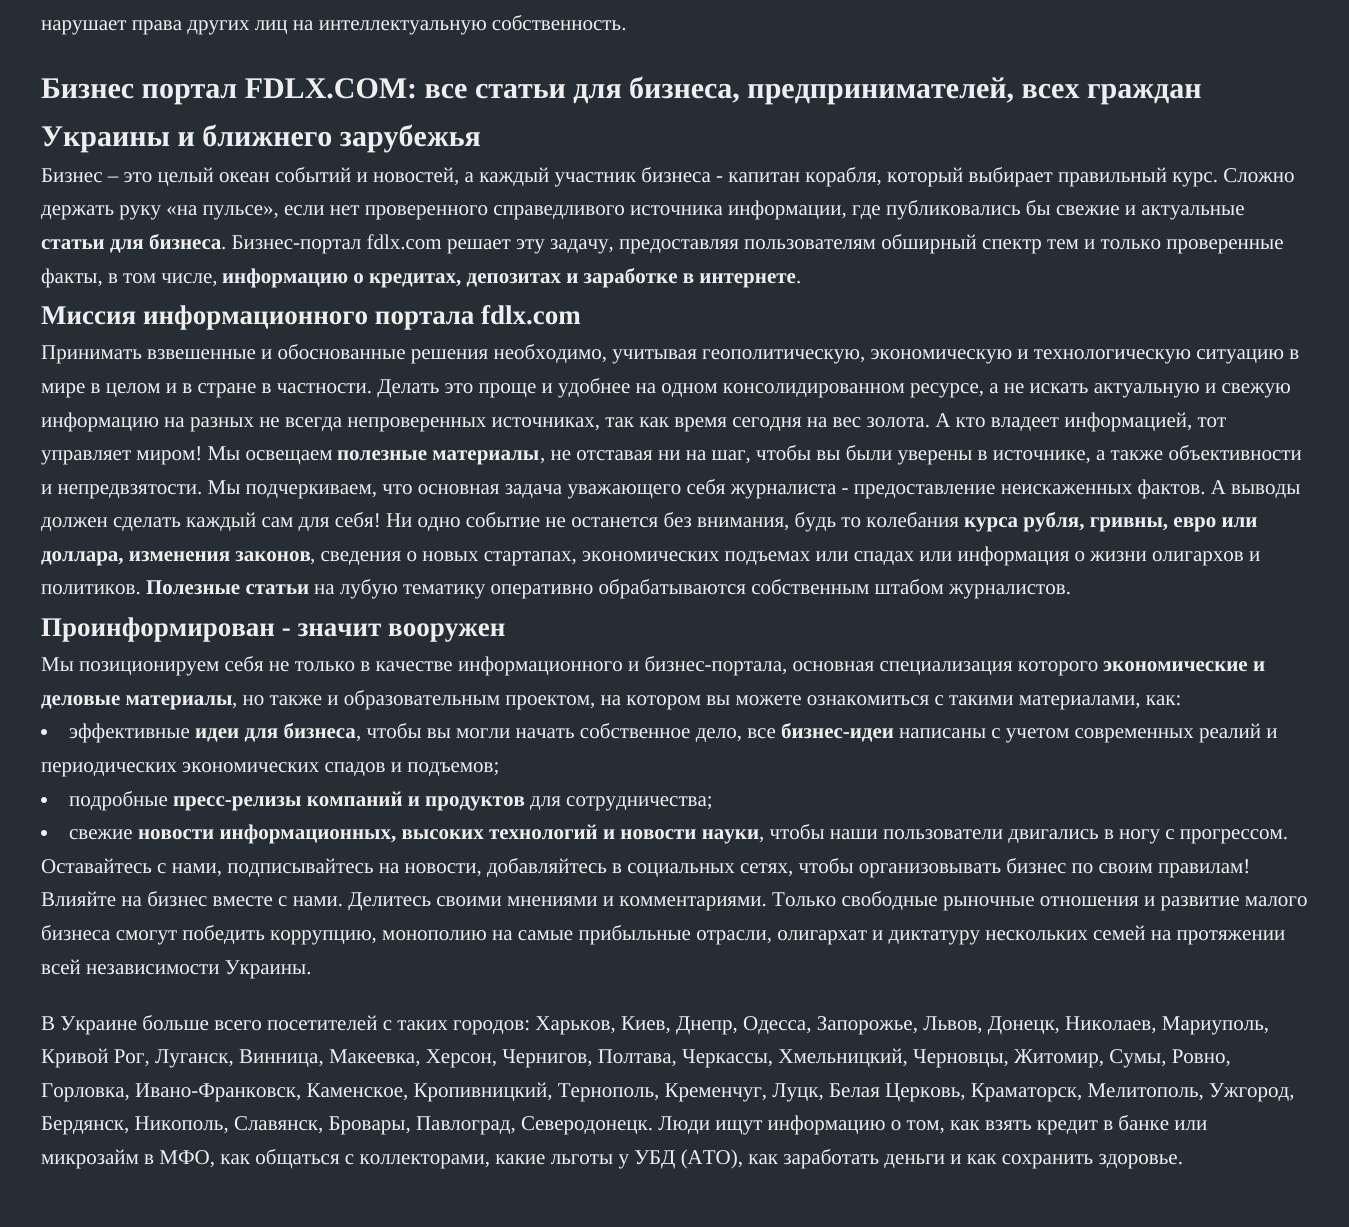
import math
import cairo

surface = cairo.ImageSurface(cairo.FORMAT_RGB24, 1349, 1227)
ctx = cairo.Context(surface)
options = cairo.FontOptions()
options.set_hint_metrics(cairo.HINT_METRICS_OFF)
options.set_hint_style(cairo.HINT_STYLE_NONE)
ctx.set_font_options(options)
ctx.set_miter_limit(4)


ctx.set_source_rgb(0.149, 0.176, 0.208)
ctx.paint()
ctx.select_font_face("Liberation Serif")
ctx.set_font_size(21)
ctx.set_source_rgb(0.937, 0.937, 0.937)
ctx.move_to(41, 30)
ctx.show_text("нарушает права других лиц на интеллектуальную собственность.")
ctx.select_font_face("Liberation Serif", cairo.FONT_SLANT_NORMAL, cairo.FONT_WEIGHT_BOLD)
ctx.set_font_size(30)
ctx.move_to(41, 98)
ctx.show_text("Бизнес портал FDLX.COM: все статьи для бизнеса, предпринимателей, всех граждан")
ctx.move_to(41, 146)
ctx.show_text("Украины и ближнего зарубежья")
ctx.select_font_face("Liberation Serif")
ctx.set_font_size(21)
ctx.move_to(41, 182)
ctx.show_text("Бизнес – это целый океан событий и новостей, а каждый участник бизнеса - капитан корабля, который выбирает правильный курс. Сложно")
ctx.move_to(41, 215)
ctx.show_text("держать руку «на пульсе», если нет проверенного справедливого источника информации, где публиковались бы свежие и актуальные")
ctx.select_font_face("Liberation Serif", cairo.FONT_SLANT_NORMAL, cairo.FONT_WEIGHT_BOLD)
ctx.move_to(41, 249)
ctx.show_text("статьи для бизнеса")
ctx.select_font_face("Liberation Serif")
ctx.move_to(221, 249)
ctx.show_text(". Бизнес-портал fdlx.com решает эту задачу, предоставляя пользователям обширный спектр тем и только проверенные")
ctx.move_to(41, 283)
ctx.show_text("факты, в том числе,")
ctx.select_font_face("Liberation Serif", cairo.FONT_SLANT_NORMAL, cairo.FONT_WEIGHT_BOLD)
ctx.move_to(222, 283)
ctx.show_text("информацию о кредитах, депозитах и заработке в интернете")
ctx.select_font_face("Liberation Serif")
ctx.move_to(796, 283)
ctx.show_text(".")
ctx.select_font_face("Liberation Serif", cairo.FONT_SLANT_NORMAL, cairo.FONT_WEIGHT_BOLD)
ctx.set_font_size(27)
ctx.move_to(41, 324)
ctx.show_text("Миссия информационного портала fdlx.com")
ctx.select_font_face("Liberation Serif")
ctx.set_font_size(21)
ctx.move_to(41, 359)
ctx.show_text("Принимать взвешенные и обоснованные решения необходимо, учитывая геополитическую, экономическую и технологическую ситуацию в")
ctx.move_to(41, 393)
ctx.show_text("мире в целом и в стране в частности. Делать это проще и удобнее на одном консолидированном ресурсе, а не искать актуальную и свежую")
ctx.move_to(41, 427)
ctx.show_text("информацию на разных не всегда непроверенных источниках, так как время сегодня на вес золота. А кто владеет информацией, тот")
ctx.move_to(41, 460)
ctx.show_text("управляет миром! Мы освещаем")
ctx.select_font_face("Liberation Serif", cairo.FONT_SLANT_NORMAL, cairo.FONT_WEIGHT_BOLD)
ctx.move_to(337, 460)
ctx.show_text("полезные материалы")
ctx.select_font_face("Liberation Serif")
ctx.move_to(540, 460)
ctx.show_text(", не отставая ни на шаг, чтобы вы были уверены в источнике, а также объективности")
ctx.move_to(41, 494)
ctx.show_text("и непредвзятости. Мы подчеркиваем, что основная задача уважающего себя журналиста - предоставление неискаженных фактов. А выводы")
ctx.move_to(41, 527)
ctx.show_text("должен сделать каждый сам для себя! Ни одно событие не останется без внимания, будь то колебания")
ctx.select_font_face("Liberation Serif", cairo.FONT_SLANT_NORMAL, cairo.FONT_WEIGHT_BOLD)
ctx.move_to(964, 527)
ctx.show_text("курса рубля, гривны, евро или")
ctx.move_to(41, 561)
ctx.show_text("доллара, изменения законов")
ctx.select_font_face("Liberation Serif")
ctx.move_to(310, 561)
ctx.show_text(", сведения о новых стартапах, экономических подъемах или спадах или информация о жизни олигархов и")
ctx.move_to(41, 594)
ctx.show_text("политиков.")
ctx.select_font_face("Liberation Serif", cairo.FONT_SLANT_NORMAL, cairo.FONT_WEIGHT_BOLD)
ctx.move_to(146, 594)
ctx.show_text("Полезные статьи")
ctx.select_font_face("Liberation Serif")
ctx.move_to(314, 594)
ctx.show_text("на лубую тематику оперативно обрабатываются собственным штабом журналистов.")
ctx.select_font_face("Liberation Serif", cairo.FONT_SLANT_NORMAL, cairo.FONT_WEIGHT_BOLD)
ctx.set_font_size(27)
ctx.move_to(41, 636)
ctx.show_text("Проинформирован - значит вооружен")
ctx.select_font_face("Liberation Serif")
ctx.set_font_size(21)
ctx.move_to(41, 671)
ctx.show_text("Мы позиционируем себя не только в качестве информационного и бизнес-портала, основная специализация которого")
ctx.select_font_face("Liberation Serif", cairo.FONT_SLANT_NORMAL, cairo.FONT_WEIGHT_BOLD)
ctx.move_to(1103, 671)
ctx.show_text("экономические и")
ctx.move_to(41, 705)
ctx.show_text("деловые материалы")
ctx.select_font_face("Liberation Serif")
ctx.move_to(232, 705)
ctx.show_text(", но также и образовательным проектом, на котором вы можете ознакомиться с такими материалами, как:")
ctx.new_path()
ctx.arc(44, 732, 3, 0, 2 * math.pi)
ctx.fill()
ctx.move_to(69, 738)
ctx.show_text("эффективные")
ctx.select_font_face("Liberation Serif", cairo.FONT_SLANT_NORMAL, cairo.FONT_WEIGHT_BOLD)
ctx.move_to(195, 738)
ctx.show_text("идеи для бизнеса")
ctx.select_font_face("Liberation Serif")
ctx.move_to(356, 738)
ctx.show_text(", чтобы вы могли начать собственное дело, все")
ctx.select_font_face("Liberation Serif", cairo.FONT_SLANT_NORMAL, cairo.FONT_WEIGHT_BOLD)
ctx.move_to(781, 738)
ctx.show_text("бизнес-идеи")
ctx.select_font_face("Liberation Serif")
ctx.move_to(899, 738)
ctx.show_text("написаны с учетом современных реалий и")
ctx.move_to(41, 772)
ctx.show_text("периодических экономических спадов и подъемов;")
ctx.new_path()
ctx.arc(44, 800, 3, 0, 2 * math.pi)
ctx.fill()
ctx.move_to(69, 806)
ctx.show_text("подробные")
ctx.select_font_face("Liberation Serif", cairo.FONT_SLANT_NORMAL, cairo.FONT_WEIGHT_BOLD)
ctx.move_to(173, 806)
ctx.show_text("пресс-релизы компаний и продуктов")
ctx.select_font_face("Liberation Serif")
ctx.move_to(530, 806)
ctx.show_text("для сотрудничества;")
ctx.new_path()
ctx.arc(44, 833, 3, 0, 2 * math.pi)
ctx.fill()
ctx.move_to(69, 839)
ctx.show_text("свежие")
ctx.select_font_face("Liberation Serif", cairo.FONT_SLANT_NORMAL, cairo.FONT_WEIGHT_BOLD)
ctx.move_to(138, 839)
ctx.show_text("новости информационных, высоких технологий и новости науки")
ctx.select_font_face("Liberation Serif")
ctx.move_to(759, 839)
ctx.show_text(", чтобы наши пользователи двигались в ногу с прогрессом.")
ctx.move_to(41, 873)
ctx.show_text("Оставайтесь с нами, подписывайтесь на новости, добавляйтесь в социальных сетях, чтобы организовывать бизнес по своим правилам!")
ctx.move_to(41, 906)
ctx.show_text("Влияйте на бизнес вместе с нами. Делитесь своими мнениями и комментариями. Только свободные рыночные отношения и развитие малого")
ctx.move_to(41, 940)
ctx.show_text("бизнеса смогут победить коррупцию, монополию на самые прибыльные отрасли, олигархат и диктатуру нескольких семей на протяжении")
ctx.move_to(41, 974)
ctx.show_text("всей независимости Украины.")
ctx.move_to(41, 1030)
ctx.show_text("В Украине больше всего посетителей с таких городов: Харьков, Киев, Днепр, Одесса, Запорожье, Львов, Донецк, Николаев, Мариуполь,")
ctx.move_to(41, 1063)
ctx.show_text("Кривой Рог, Луганск, Винница, Макеевка, Херсон, Чернигов, Полтава, Черкассы, Хмельницкий, Черновцы, Житомир, Сумы, Ровно,")
ctx.move_to(41, 1097)
ctx.show_text("Горловка, Ивано-Франковск, Каменское, Кропивницкий, Тернополь, Кременчуг, Луцк, Белая Церковь, Краматорск, Мелитополь, Ужгород,")
ctx.move_to(41, 1130)
ctx.show_text("Бердянск, Никополь, Славянск, Бровары, Павлоград, Северодонецк. Люди ищут информацию о том, как взять кредит в банке или")
ctx.move_to(41, 1164)
ctx.show_text("микрозайм в МФО, как общаться с коллекторами, какие льготы у УБД (АТО), как заработать деньги и как сохранить здоровье.")
surface.write_to_png("page.png")
